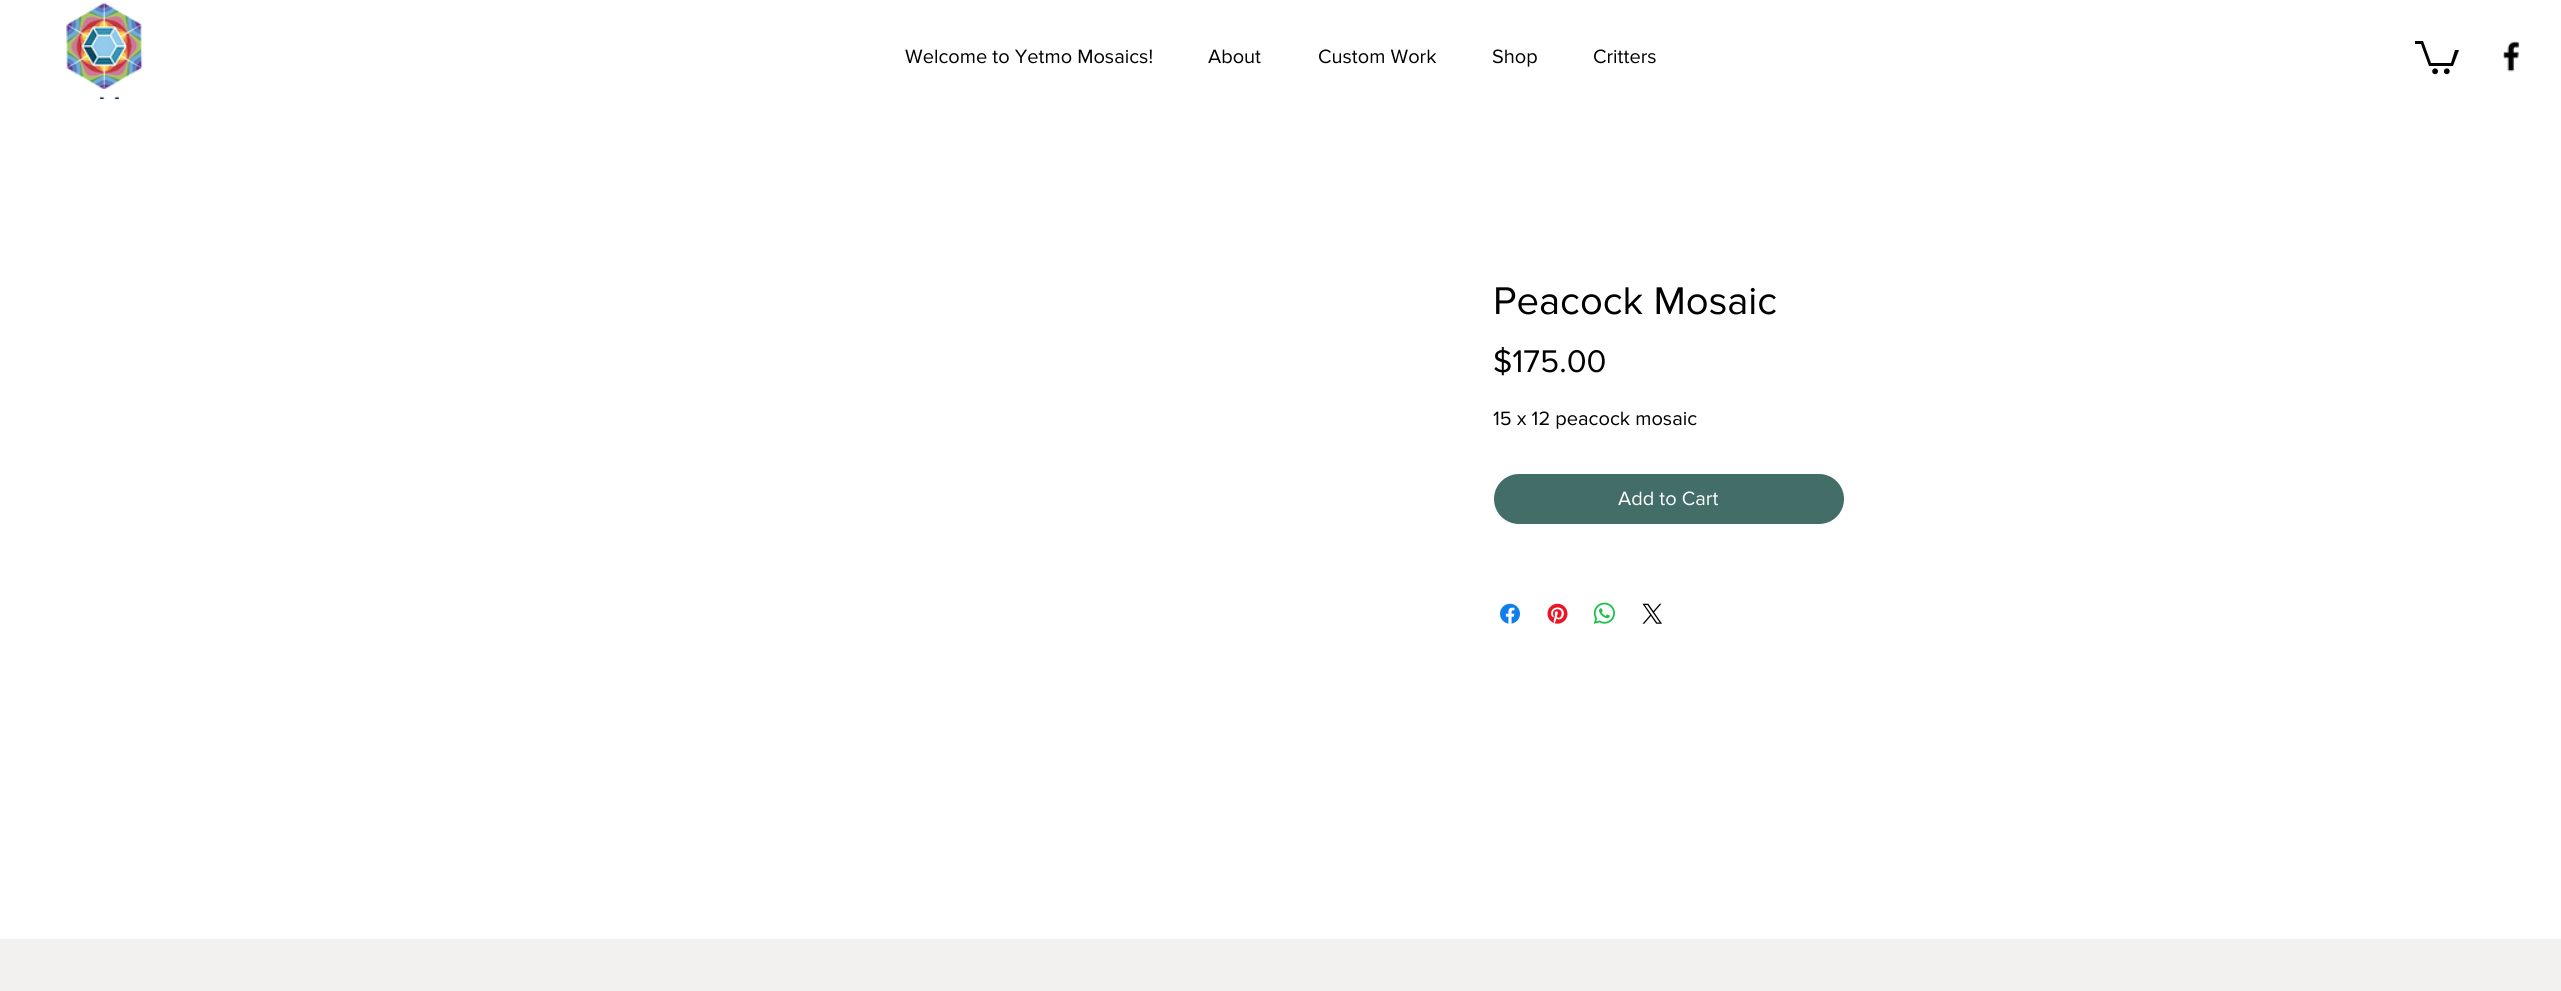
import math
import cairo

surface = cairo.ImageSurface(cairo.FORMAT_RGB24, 2561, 991)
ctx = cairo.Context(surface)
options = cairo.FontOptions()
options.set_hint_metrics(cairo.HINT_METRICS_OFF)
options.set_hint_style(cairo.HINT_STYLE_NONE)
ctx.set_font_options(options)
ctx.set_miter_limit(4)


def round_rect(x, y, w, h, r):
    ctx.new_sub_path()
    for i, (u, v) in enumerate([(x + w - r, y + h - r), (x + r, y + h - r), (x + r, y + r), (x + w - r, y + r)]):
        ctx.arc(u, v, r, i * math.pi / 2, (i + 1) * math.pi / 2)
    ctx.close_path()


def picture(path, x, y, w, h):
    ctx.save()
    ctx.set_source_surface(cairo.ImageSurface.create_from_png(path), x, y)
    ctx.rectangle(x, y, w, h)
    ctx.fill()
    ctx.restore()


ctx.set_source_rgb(0.949, 0.945, 0.941)
ctx.paint()
ctx.set_source_rgb(1, 1, 1)
ctx.rectangle(0, 0, 2561, 939)
ctx.fill()
picture("img1.png", 66, 2, 77, 97)
ctx.select_font_face("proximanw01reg")
ctx.set_font_size(20)
ctx.set_source_rgb(0, 0, 0)
ctx.move_to(905, 63)
ctx.show_text("Welcome to Yetmo Mosaics!")
ctx.move_to(1208, 63)
ctx.show_text("About")
ctx.move_to(1318, 63)
ctx.show_text("Custom Work")
ctx.move_to(1492, 63)
ctx.show_text("Shop")
ctx.move_to(1593, 63)
ctx.show_text("Critters")
ctx.new_path()
ctx.move_to(2459, 50)
ctx.line_to(2453, 66)
ctx.line_to(2429, 66)
ctx.line_to(2421, 44)
ctx.line_to(2415, 44)
ctx.line_to(2415, 41)
ctx.line_to(2423, 41)
ctx.line_to(2431, 63)
ctx.line_to(2451, 63)
ctx.line_to(2455, 50)
ctx.fill()
ctx.arc(2446.8, 71.3, 2.9, 0, 2 * math.pi)
ctx.fill()
ctx.arc(2435.1, 71.3, 2.9, 0, 2 * math.pi)
ctx.fill()
picture("img2.png", 2503, 41, 17, 31)
ctx.set_font_size(40)
ctx.move_to(1493, 314)
ctx.show_text("Peacock Mosaic")
ctx.set_font_size(32.5)
ctx.move_to(1493, 372)
ctx.show_text("$175.00")
ctx.set_font_size(20)
ctx.move_to(1493, 425)
ctx.show_text("15 x 12 peacock mosaic")
ctx.set_source_rgb(0.263, 0.427, 0.404)
round_rect(1494, 474, 350, 50, 25)
ctx.fill()
ctx.set_source_rgb(1, 1, 1)
ctx.move_to(1618, 505)
ctx.show_text("Add to Cart")
picture("img3.png", 1500, 603, 20, 21)
picture("img4.png", 1547, 603, 21, 21)
picture("img5.png", 1593, 602, 22, 22)
picture("img6.png", 1642, 603, 20, 21)
surface.write_to_png("page.png")
